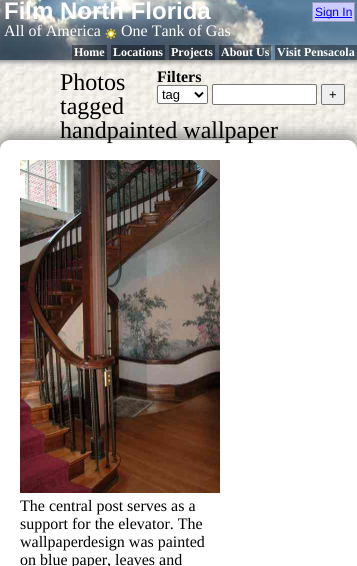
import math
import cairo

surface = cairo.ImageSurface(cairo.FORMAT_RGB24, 357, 566)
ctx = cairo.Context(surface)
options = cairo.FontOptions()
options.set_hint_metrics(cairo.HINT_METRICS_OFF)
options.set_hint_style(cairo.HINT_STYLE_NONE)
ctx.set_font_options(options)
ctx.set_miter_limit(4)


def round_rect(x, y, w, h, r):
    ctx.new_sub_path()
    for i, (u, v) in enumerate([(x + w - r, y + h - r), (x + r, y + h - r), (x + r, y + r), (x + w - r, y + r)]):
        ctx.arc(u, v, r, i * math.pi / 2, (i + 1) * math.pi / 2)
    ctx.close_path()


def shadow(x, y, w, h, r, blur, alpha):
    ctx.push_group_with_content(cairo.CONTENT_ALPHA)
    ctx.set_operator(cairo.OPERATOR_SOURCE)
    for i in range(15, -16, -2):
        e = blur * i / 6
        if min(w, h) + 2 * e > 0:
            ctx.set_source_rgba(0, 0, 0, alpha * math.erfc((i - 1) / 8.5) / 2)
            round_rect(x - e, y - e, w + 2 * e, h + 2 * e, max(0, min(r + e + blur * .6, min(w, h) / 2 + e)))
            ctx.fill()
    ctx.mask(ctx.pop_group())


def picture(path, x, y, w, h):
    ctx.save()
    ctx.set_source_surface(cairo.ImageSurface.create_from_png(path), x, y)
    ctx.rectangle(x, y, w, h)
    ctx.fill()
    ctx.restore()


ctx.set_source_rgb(1, 1, 1)
ctx.paint()
picture("img1.png", 0, 60, 357, 90)
ctx.set_source_rgb(0.533, 0.533, 0.533)
shadow(0, 2, 357, 60, 0, 2.5, 1)
picture("img2.png", 0, 0, 357, 60)
ctx.select_font_face("Liberation Sans", cairo.FONT_SLANT_NORMAL, cairo.FONT_WEIGHT_BOLD)
ctx.set_font_size(24)
ctx.set_source_rgb(1, 1, 1)
ctx.move_to(4, 19)
ctx.show_text("Film North Florida")
ctx.select_font_face("Liberation Serif")
ctx.set_font_size(16)
ctx.move_to(4, 36)
ctx.show_text("All of America")
picture("img3.png", 105, 28, 12, 12)
ctx.move_to(121, 36)
ctx.show_text("One Tank of Gas")
ctx.set_source_rgba(0, 0, 0, 0.4)
ctx.rectangle(72, 45, 35, 15)
ctx.fill()
ctx.select_font_face("Liberation Serif", cairo.FONT_SLANT_NORMAL, cairo.FONT_WEIGHT_BOLD)
ctx.set_font_size(12)
ctx.set_source_rgb(1, 1, 1)
ctx.move_to(74, 56)
ctx.show_text("Home")
ctx.set_source_rgba(0, 0, 0, 0.4)
ctx.rectangle(111, 45, 54, 15)
ctx.fill()
ctx.set_source_rgb(1, 1, 1)
ctx.move_to(113, 56)
ctx.show_text("Locations")
ctx.set_source_rgba(0, 0, 0, 0.4)
ctx.rectangle(169, 45, 46, 15)
ctx.fill()
ctx.set_source_rgb(1, 1, 1)
ctx.move_to(171, 56)
ctx.show_text("Projects")
ctx.set_source_rgba(0, 0, 0, 0.4)
ctx.rectangle(219, 45, 52, 15)
ctx.fill()
ctx.set_source_rgb(1, 1, 1)
ctx.move_to(221, 56)
ctx.show_text("About Us")
ctx.set_source_rgba(0, 0, 0, 0.4)
ctx.rectangle(275, 45, 82, 15)
ctx.fill()
ctx.set_source_rgb(1, 1, 1)
ctx.move_to(277, 56)
ctx.show_text("Visit Pensacola")
ctx.set_source_rgb(0.8, 0.8, 1)
ctx.rectangle(312.5, 2.5, 42, 19)
ctx.fill_preserve()
ctx.set_source_rgb(0.592, 0.592, 0.753)
ctx.set_line_width(1)
ctx.stroke()
ctx.set_source_rgb(0, 0, 1)
ctx.rectangle(315, 17, 37, 1)
ctx.fill()
ctx.select_font_face("Liberation Sans")
ctx.move_to(315, 16)
ctx.show_text("Sign In")
ctx.select_font_face("Liberation Serif", cairo.FONT_SLANT_NORMAL, cairo.FONT_WEIGHT_BOLD)
ctx.set_font_size(16)
ctx.set_source_rgb(0, 0, 0)
ctx.move_to(157, 82)
ctx.show_text("Filters")
ctx.set_source_rgb(1, 1, 1)
round_rect(157.5, 85.5, 50, 18, 1.5)
ctx.fill_preserve()
ctx.set_source_rgb(0.463, 0.463, 0.463)
ctx.stroke()
ctx.new_path()
ctx.move_to(195, 92.5)
ctx.line_to(199, 96.5)
ctx.line_to(203, 92.5)
ctx.set_source_rgb(0, 0, 0)
ctx.set_line_width(2)
ctx.stroke()
ctx.select_font_face("Liberation Sans")
ctx.set_font_size(13)
ctx.move_to(162, 99)
ctx.show_text("tag")
ctx.set_source_rgb(1, 1, 1)
round_rect(212.5, 84.5, 104, 20, 1.5)
ctx.fill_preserve()
ctx.set_source_rgb(0.463, 0.463, 0.463)
ctx.set_line_width(1)
ctx.stroke()
ctx.set_source_rgb(0.937, 0.937, 0.937)
round_rect(321.5, 84.5, 23, 20, 1.5)
ctx.fill_preserve()
ctx.set_source_rgb(0.463, 0.463, 0.463)
ctx.stroke()
ctx.set_source_rgb(0, 0, 0)
ctx.move_to(329, 99)
ctx.show_text("+")
ctx.select_font_face("Liberation Serif")
ctx.set_font_size(24)
ctx.move_to(60, 90)
ctx.show_text("Photos")
ctx.set_source_rgb(0.533, 0.533, 0.533)
shadow(0, 135, 357, 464, 10, 7.5, 1)
ctx.set_source_rgb(0, 0, 0)
ctx.move_to(60, 114)
ctx.show_text("tagged")
ctx.set_source_rgb(1, 1, 1)
round_rect(0, 140, 357, 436, 10)
ctx.fill()
ctx.set_source_rgb(0, 0, 0)
ctx.move_to(60, 138)
ctx.show_text("handpainted wallpaper")
picture("img4.png", 20, 160, 200, 333)
ctx.set_font_size(16)
ctx.move_to(20, 511)
ctx.show_text("The central post serves as a")
ctx.move_to(20, 529)
ctx.show_text("support for the elevator. The")
ctx.move_to(20, 547)
ctx.show_text("wallpaperdesign was painted")
ctx.move_to(20, 565)
ctx.show_text("on blue paper, leaves and")
surface.write_to_png("page.png")
